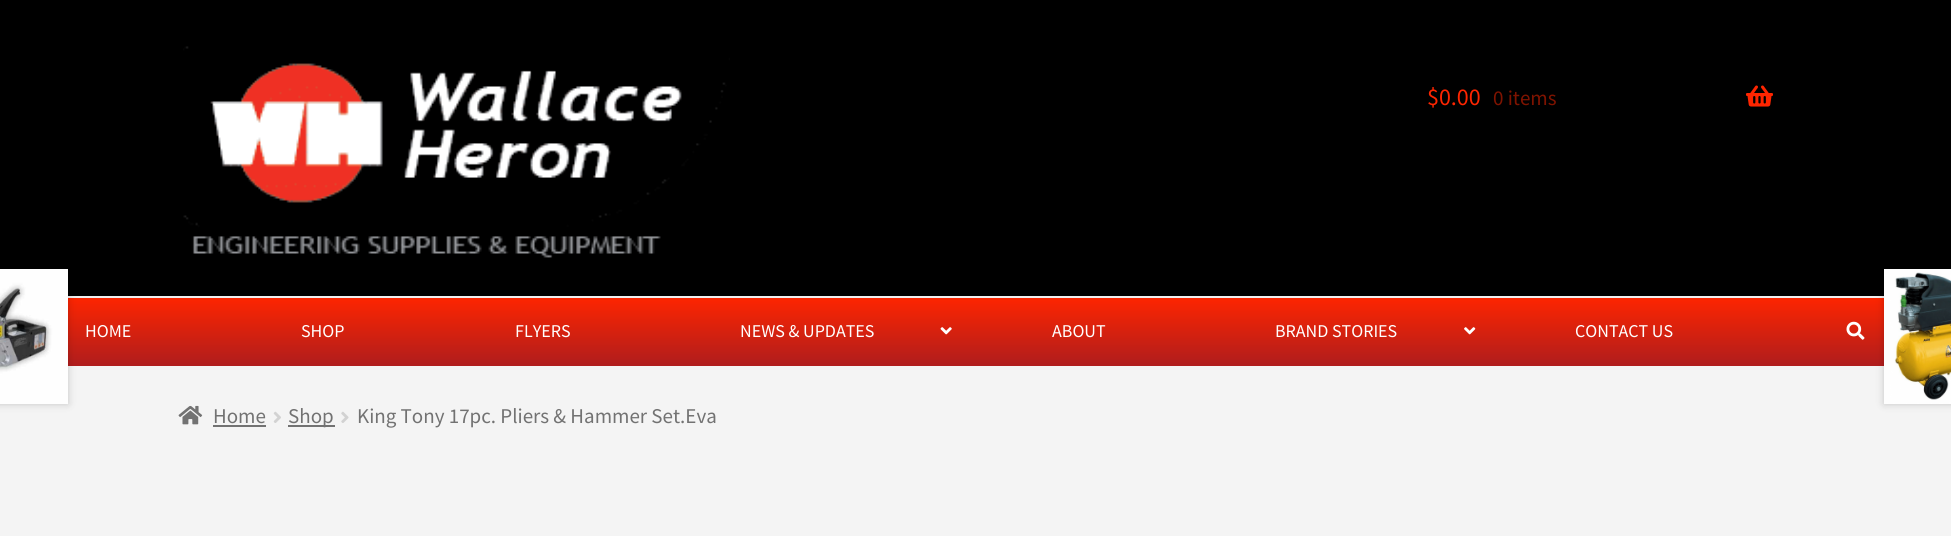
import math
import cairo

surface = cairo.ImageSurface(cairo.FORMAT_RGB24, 1951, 536)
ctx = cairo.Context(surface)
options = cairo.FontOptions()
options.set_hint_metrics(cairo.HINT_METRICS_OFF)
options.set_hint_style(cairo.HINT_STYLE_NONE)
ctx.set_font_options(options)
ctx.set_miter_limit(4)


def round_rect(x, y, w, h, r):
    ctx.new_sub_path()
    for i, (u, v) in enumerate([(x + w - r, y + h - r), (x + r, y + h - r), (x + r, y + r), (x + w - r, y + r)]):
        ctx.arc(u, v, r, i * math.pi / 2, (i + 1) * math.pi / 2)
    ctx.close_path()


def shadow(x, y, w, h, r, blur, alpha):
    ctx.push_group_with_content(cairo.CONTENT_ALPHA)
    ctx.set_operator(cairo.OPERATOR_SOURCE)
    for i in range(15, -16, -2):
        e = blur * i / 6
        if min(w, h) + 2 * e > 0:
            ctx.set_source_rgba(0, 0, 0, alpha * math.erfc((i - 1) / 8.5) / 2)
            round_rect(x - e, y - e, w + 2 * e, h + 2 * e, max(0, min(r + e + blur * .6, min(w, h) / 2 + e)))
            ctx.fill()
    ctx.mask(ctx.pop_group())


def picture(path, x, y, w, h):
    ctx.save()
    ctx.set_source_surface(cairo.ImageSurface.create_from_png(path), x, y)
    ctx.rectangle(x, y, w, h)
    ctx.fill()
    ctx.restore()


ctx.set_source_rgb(0.957, 0.957, 0.957)
ctx.paint()
ctx.set_source_rgb(0, 0, 0)
ctx.rectangle(0, 0, 1951, 296)
ctx.fill()
ctx.set_source_rgb(0.941, 0.941, 0.941)
ctx.rectangle(68, 296, 1816, 2)
ctx.fill()
picture("img1.png", 183, 46, 547, 212)
ctx.select_font_face("Source Sans Pro")
ctx.set_font_size(24)
ctx.set_source_rgb(0.996, 0.145, 0)
ctx.move_to(1427, 105)
ctx.show_text("$0.00")
ctx.set_font_size(21)
ctx.set_source_rgb(0.498, 0.075, 0)
ctx.move_to(1493, 105)
ctx.show_text("0 items")
picture("img2.png", 1746, 85, 27, 22)
gradient = cairo.LinearGradient(976, 297, 976, 366)
gradient.add_color_stop_rgba(0, 0.996, 0.145, 0, 1)
gradient.add_color_stop_rgba(1, 0.686, 0.114, 0.114, 1)
ctx.set_source(gradient)
ctx.rectangle(68, 298, 1816, 68)
ctx.fill()
ctx.set_source_rgb(0, 0, 0)
shadow(-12, 269, 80, 135, 0, 4, 0.2)
picture("img3.png", 0, 269, 68, 135)
shadow(1884, 269, 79, 135, 0, 4, 0.2)
picture("img4.png", 1884, 269, 67, 135)
ctx.set_font_size(18)
ctx.set_source_rgb(1, 1, 1)
ctx.move_to(85, 337)
ctx.show_text("HOME")
ctx.move_to(301, 337)
ctx.show_text("SHOP")
ctx.move_to(515, 337)
ctx.show_text("FLYERS")
ctx.move_to(740, 337)
ctx.show_text("NEWS & UPDATES")
picture("img5.png", 940, 327, 12, 8)
ctx.move_to(1052, 337)
ctx.show_text("ABOUT")
ctx.move_to(1275, 337)
ctx.show_text("BRAND STORIES")
picture("img6.png", 1464, 327, 12, 8)
ctx.move_to(1575, 337)
ctx.show_text("CONTACT US")
picture("img7.png", 1846, 321, 19, 19)
picture("img8.png", 178, 405, 25, 20)
ctx.set_font_size(21)
ctx.set_source_rgb(0.447, 0.447, 0.447)
ctx.move_to(213, 423)
ctx.show_text("Home")
ctx.rectangle(213, 425, 53, 2)
ctx.fill()
picture("img9.png", 273, 411, 8, 12)
ctx.rectangle(288, 425, 47, 2)
ctx.fill()
ctx.move_to(288, 423)
ctx.show_text("Shop")
picture("img10.png", 341, 411, 8, 12)
ctx.move_to(357, 423)
ctx.show_text("King Tony 17pc. Pliers & Hammer Set.Eva")
surface.write_to_png("page.png")
